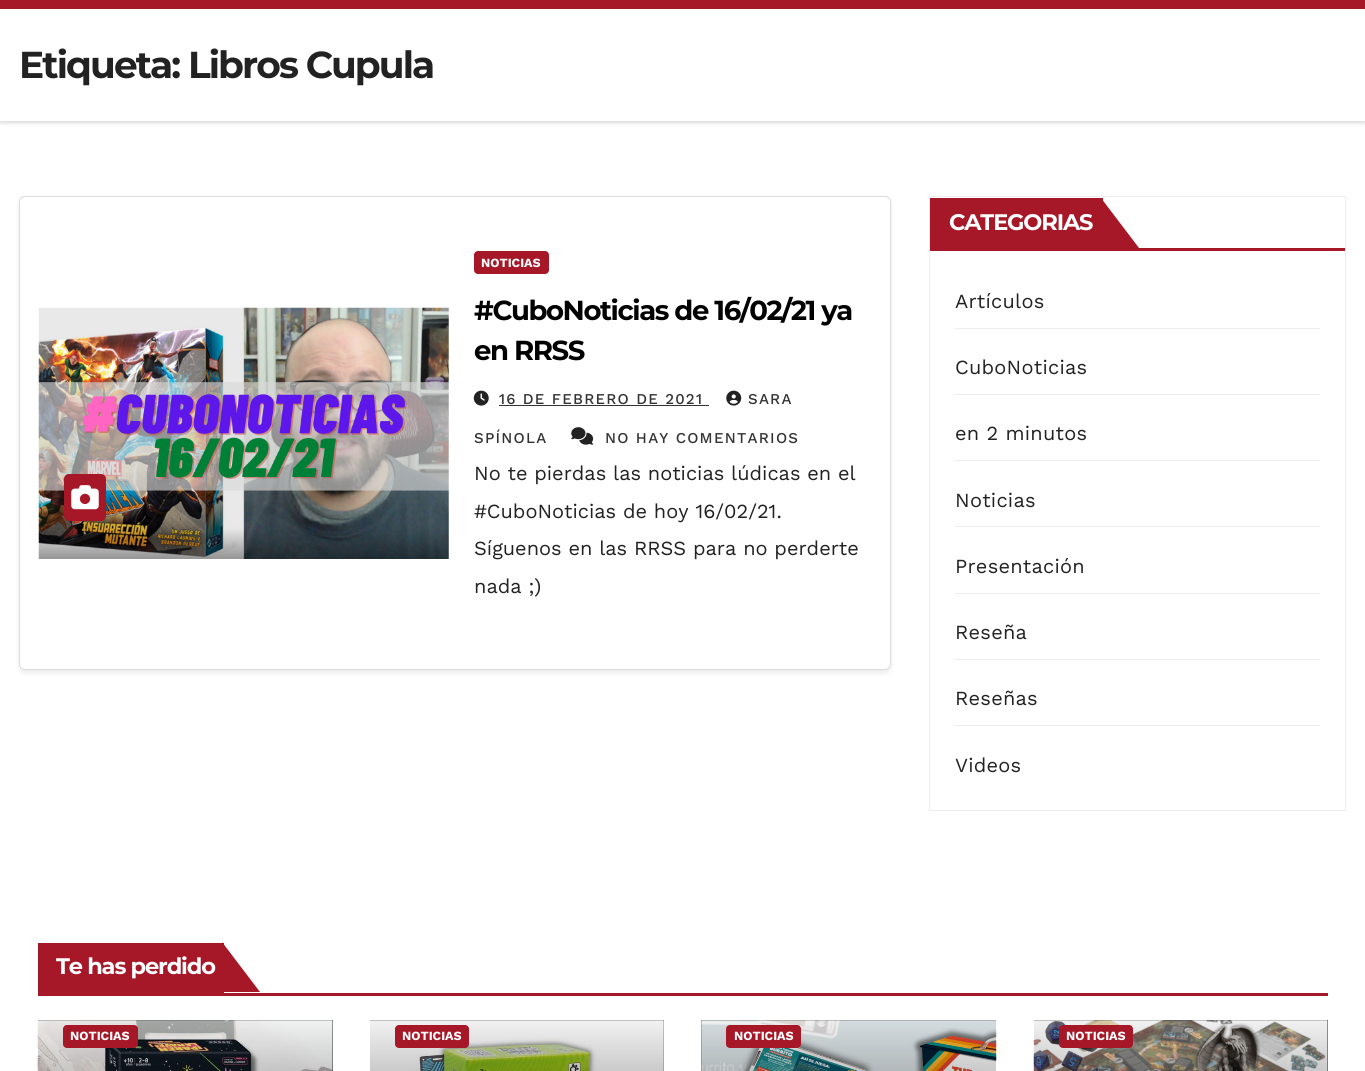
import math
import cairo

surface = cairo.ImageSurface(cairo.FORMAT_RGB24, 1365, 1071)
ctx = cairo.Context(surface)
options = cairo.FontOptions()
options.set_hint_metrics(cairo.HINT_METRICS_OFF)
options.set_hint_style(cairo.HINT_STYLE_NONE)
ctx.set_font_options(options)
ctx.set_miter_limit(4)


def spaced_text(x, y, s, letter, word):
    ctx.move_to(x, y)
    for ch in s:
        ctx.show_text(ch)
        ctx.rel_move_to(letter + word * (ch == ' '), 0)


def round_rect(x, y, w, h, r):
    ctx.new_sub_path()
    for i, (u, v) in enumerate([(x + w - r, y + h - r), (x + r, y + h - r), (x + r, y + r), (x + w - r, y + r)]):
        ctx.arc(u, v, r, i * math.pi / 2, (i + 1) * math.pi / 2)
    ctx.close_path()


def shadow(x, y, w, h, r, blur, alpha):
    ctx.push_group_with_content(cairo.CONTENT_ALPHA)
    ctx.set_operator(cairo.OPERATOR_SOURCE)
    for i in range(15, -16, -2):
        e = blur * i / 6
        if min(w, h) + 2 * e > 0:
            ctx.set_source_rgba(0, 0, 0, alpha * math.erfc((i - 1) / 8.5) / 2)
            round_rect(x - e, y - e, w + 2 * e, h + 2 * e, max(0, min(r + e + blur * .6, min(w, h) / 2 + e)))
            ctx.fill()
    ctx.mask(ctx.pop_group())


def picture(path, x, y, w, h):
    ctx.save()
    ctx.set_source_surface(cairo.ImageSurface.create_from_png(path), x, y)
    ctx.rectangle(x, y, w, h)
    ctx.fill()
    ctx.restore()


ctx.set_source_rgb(1, 1, 1)
ctx.paint()
ctx.set_source_rgb(0, 0, 0)
shadow(0, 10, 1365, 113, 0, 2, 0.15)
ctx.set_source_rgb(0.651, 0.09, 0.153)
ctx.rectangle(0, 0, 1365, 9)
ctx.fill()
ctx.set_source_rgb(1, 1, 1)
ctx.rectangle(0, 9, 1365, 112)
ctx.fill()
ctx.select_font_face("Montserrat", cairo.FONT_SLANT_NORMAL, cairo.FONT_WEIGHT_BOLD)
ctx.set_font_size(37.5)
ctx.set_source_rgb(0.133, 0.133, 0.133)
spaced_text(19, 78, "Etiqueta: Libros Cupula", -1.9, 0)
ctx.set_source_rgb(0, 0, 0)
shadow(19, 199, 872, 474, 6, 2.5, 0.08)
ctx.set_source_rgb(1, 1, 1)
round_rect(19.5, 196.5, 871, 473, 5.5)
ctx.fill_preserve()
ctx.set_source_rgb(0.867, 0.863, 0.863)
ctx.set_line_width(1)
ctx.stroke()
picture("img1.png", 38, 307, 411, 252)
ctx.set_source_rgb(0.651, 0.09, 0.153)
round_rect(64, 474, 42, 47, 5)
ctx.fill()
picture("img2.png", 71, 485, 28, 25)
round_rect(474, 251, 75, 23, 4)
ctx.fill()
ctx.select_font_face("Work Sans", cairo.FONT_SLANT_NORMAL, cairo.FONT_WEIGHT_BOLD)
ctx.set_font_size(12.5)
ctx.set_source_rgb(1, 1, 1)
ctx.move_to(481, 267)
ctx.show_text("NOTICIAS")
ctx.select_font_face("Montserrat", cairo.FONT_SLANT_NORMAL, cairo.FONT_WEIGHT_BOLD)
ctx.set_font_size(27.5)
ctx.set_source_rgb(0, 0, 0)
spaced_text(474, 320, "#CuboNoticias de 16/02/21 ya", -1.4, 0)
spaced_text(474, 360, "en RRSS", -1.4, 0)
picture("img3.png", 726, 390, 16, 16)
ctx.select_font_face("Work Sans Medium")
ctx.set_font_size(15)
ctx.set_source_rgb(0.2, 0.2, 0.2)
spaced_text(748, 404, "SARA", 1.25, 0)
spaced_text(474, 443, "SPÍNOLA", 1.25, 0)
picture("img4.png", 473, 390, 16, 16)
spaced_text(499, 404, "16 DE FEBRERO DE 2021", 1.25, 0)
ctx.rectangle(499, 405, 210, 1)
ctx.fill()
picture("img5.png", 571, 427, 23, 18)
spaced_text(605, 443, "NO HAY COMENTARIOS", 1.25, 0)
ctx.select_font_face("Work Sans")
ctx.set_font_size(20)
ctx.set_source_rgb(0.133, 0.133, 0.133)
ctx.move_to(474, 480)
ctx.show_text("No te pierdas las noticias lúdicas en el")
ctx.move_to(474, 518)
ctx.show_text("#CuboNoticias de hoy 16/02/21.")
ctx.move_to(474, 555)
ctx.show_text("Síguenos en las RRSS para no perderte")
ctx.move_to(474, 593)
ctx.show_text("nada ;)")
ctx.rectangle(929.5, 196.5, 416, 614)
ctx.set_source_rgb(0.933, 0.933, 0.933)
ctx.stroke()
ctx.set_source_rgb(0.651, 0.09, 0.153)
ctx.rectangle(930, 248, 415, 3)
ctx.fill()
ctx.rectangle(930, 198, 173, 50)
ctx.fill()
ctx.select_font_face("Montserrat", cairo.FONT_SLANT_NORMAL, cairo.FONT_WEIGHT_BOLD)
ctx.set_font_size(22.5)
ctx.set_source_rgb(1, 1, 1)
spaced_text(949, 230, "CATEGORIAS", -1.1, 0)
ctx.set_source_rgb(0.651, 0.09, 0.153)
ctx.new_path()
ctx.move_to(1101, 248)
ctx.line_to(1101, 198)
ctx.line_to(1139, 248)
ctx.close_path()
ctx.fill()
ctx.set_source_rgb(0.933, 0.933, 0.933)
ctx.rectangle(955, 328, 365, 1)
ctx.fill()
ctx.select_font_face("Work Sans")
ctx.set_font_size(20)
ctx.set_source_rgb(0.133, 0.133, 0.133)
spaced_text(955, 308, "Artículos", 0.25, 0)
ctx.set_source_rgb(0.933, 0.933, 0.933)
ctx.rectangle(955, 394, 365, 1)
ctx.fill()
ctx.set_source_rgb(0.133, 0.133, 0.133)
spaced_text(955, 374, "CuboNoticias", 0.25, 0)
ctx.set_source_rgb(0.933, 0.933, 0.933)
ctx.rectangle(955, 460, 365, 1)
ctx.fill()
ctx.set_source_rgb(0.133, 0.133, 0.133)
spaced_text(955, 440, "en 2 minutos", 0.25, 0)
ctx.set_source_rgb(0.933, 0.933, 0.933)
ctx.rectangle(955, 526, 365, 1)
ctx.fill()
ctx.set_source_rgb(0.133, 0.133, 0.133)
spaced_text(955, 507, "Noticias", 0.25, 0)
ctx.set_source_rgb(0.933, 0.933, 0.933)
ctx.rectangle(955, 593, 365, 1)
ctx.fill()
ctx.set_source_rgb(0.133, 0.133, 0.133)
spaced_text(955, 573, "Presentación", 0.25, 0)
ctx.set_source_rgb(0.933, 0.933, 0.933)
ctx.rectangle(955, 659, 365, 1)
ctx.fill()
ctx.set_source_rgb(0.133, 0.133, 0.133)
spaced_text(955, 639, "Reseña", 0.25, 0)
ctx.set_source_rgb(0.933, 0.933, 0.933)
ctx.rectangle(955, 725, 365, 1)
ctx.fill()
ctx.set_source_rgb(0.133, 0.133, 0.133)
spaced_text(955, 705, "Reseñas", 0.25, 0)
spaced_text(955, 772, "Videos", 0.25, 0)
ctx.set_source_rgb(0.651, 0.09, 0.153)
ctx.rectangle(38, 993, 1290, 3)
ctx.fill()
ctx.rectangle(38, 943, 186, 50)
ctx.fill()
ctx.select_font_face("Montserrat", cairo.FONT_SLANT_NORMAL, cairo.FONT_WEIGHT_BOLD)
ctx.set_font_size(22.5)
ctx.set_source_rgb(1, 1, 1)
spaced_text(56, 974, "Te has perdido", -1.1, 0)
ctx.set_source_rgb(0.651, 0.09, 0.153)
ctx.new_path()
ctx.move_to(222, 992)
ctx.line_to(222, 942)
ctx.line_to(260, 992)
ctx.close_path()
ctx.fill()
ctx.set_source_rgb(0.2, 0.2, 0.2)
ctx.rectangle(38, 1020, 295, 51)
ctx.fill()
picture("img6.png", 37, 1020, 296, 51)
gradient = cairo.LinearGradient(185, 1003, 185, 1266)
gradient.add_color_stop_rgba(0, 0, 0, 0, 0)
gradient.add_color_stop_rgba(0.5, 0, 0, 0, 0.4)
gradient.add_color_stop_rgba(1, 0, 0, 0, 0.7)
ctx.set_source(gradient)
ctx.rectangle(38, 1020, 295, 51)
ctx.fill()
ctx.set_source_rgb(0.651, 0.09, 0.153)
round_rect(63, 1025, 75, 23, 4)
ctx.fill()
ctx.select_font_face("Work Sans", cairo.FONT_SLANT_NORMAL, cairo.FONT_WEIGHT_BOLD)
ctx.set_font_size(12.5)
ctx.set_source_rgb(1, 1, 1)
ctx.move_to(70, 1040)
ctx.show_text("NOTICIAS")
ctx.set_source_rgb(0.2, 0.2, 0.2)
ctx.rectangle(370, 1020, 294, 51)
ctx.fill()
picture("img7.png", 370, 1020, 294, 51)
gradient = cairo.LinearGradient(517, 1003, 517, 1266)
gradient.add_color_stop_rgba(0, 0, 0, 0, 0)
gradient.add_color_stop_rgba(0.5, 0, 0, 0, 0.4)
gradient.add_color_stop_rgba(1, 0, 0, 0, 0.7)
ctx.set_source(gradient)
ctx.rectangle(370, 1020, 294, 51)
ctx.fill()
ctx.set_source_rgb(0.651, 0.09, 0.153)
round_rect(395, 1025, 74, 23, 4)
ctx.fill()
ctx.set_source_rgb(1, 1, 1)
ctx.move_to(402, 1040)
ctx.show_text("NOTICIAS")
ctx.set_source_rgb(0.2, 0.2, 0.2)
ctx.rectangle(701, 1020, 295, 51)
ctx.fill()
picture("img8.png", 701, 1020, 296, 51)
gradient = cairo.LinearGradient(849, 1003, 849, 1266)
gradient.add_color_stop_rgba(0, 0, 0, 0, 0)
gradient.add_color_stop_rgba(0.5, 0, 0, 0, 0.4)
gradient.add_color_stop_rgba(1, 0, 0, 0, 0.7)
ctx.set_source(gradient)
ctx.rectangle(701, 1020, 295, 51)
ctx.fill()
ctx.set_source_rgb(0.651, 0.09, 0.153)
round_rect(726, 1025, 75, 23, 4)
ctx.fill()
ctx.set_source_rgb(1, 1, 1)
ctx.move_to(734, 1040)
ctx.show_text("NOTICIAS")
ctx.set_source_rgb(0.2, 0.2, 0.2)
ctx.rectangle(1034, 1020, 294, 51)
ctx.fill()
picture("img9.png", 1033, 1020, 295, 51)
gradient = cairo.LinearGradient(1181, 1003, 1181, 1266)
gradient.add_color_stop_rgba(0, 0, 0, 0, 0)
gradient.add_color_stop_rgba(0.5, 0, 0, 0, 0.4)
gradient.add_color_stop_rgba(1, 0, 0, 0, 0.7)
ctx.set_source(gradient)
ctx.rectangle(1034, 1020, 294, 51)
ctx.fill()
ctx.set_source_rgb(0.651, 0.09, 0.153)
round_rect(1059, 1025, 74, 23, 4)
ctx.fill()
ctx.set_source_rgb(1, 1, 1)
ctx.move_to(1066, 1040)
ctx.show_text("NOTICIAS")
surface.write_to_png("page.png")
